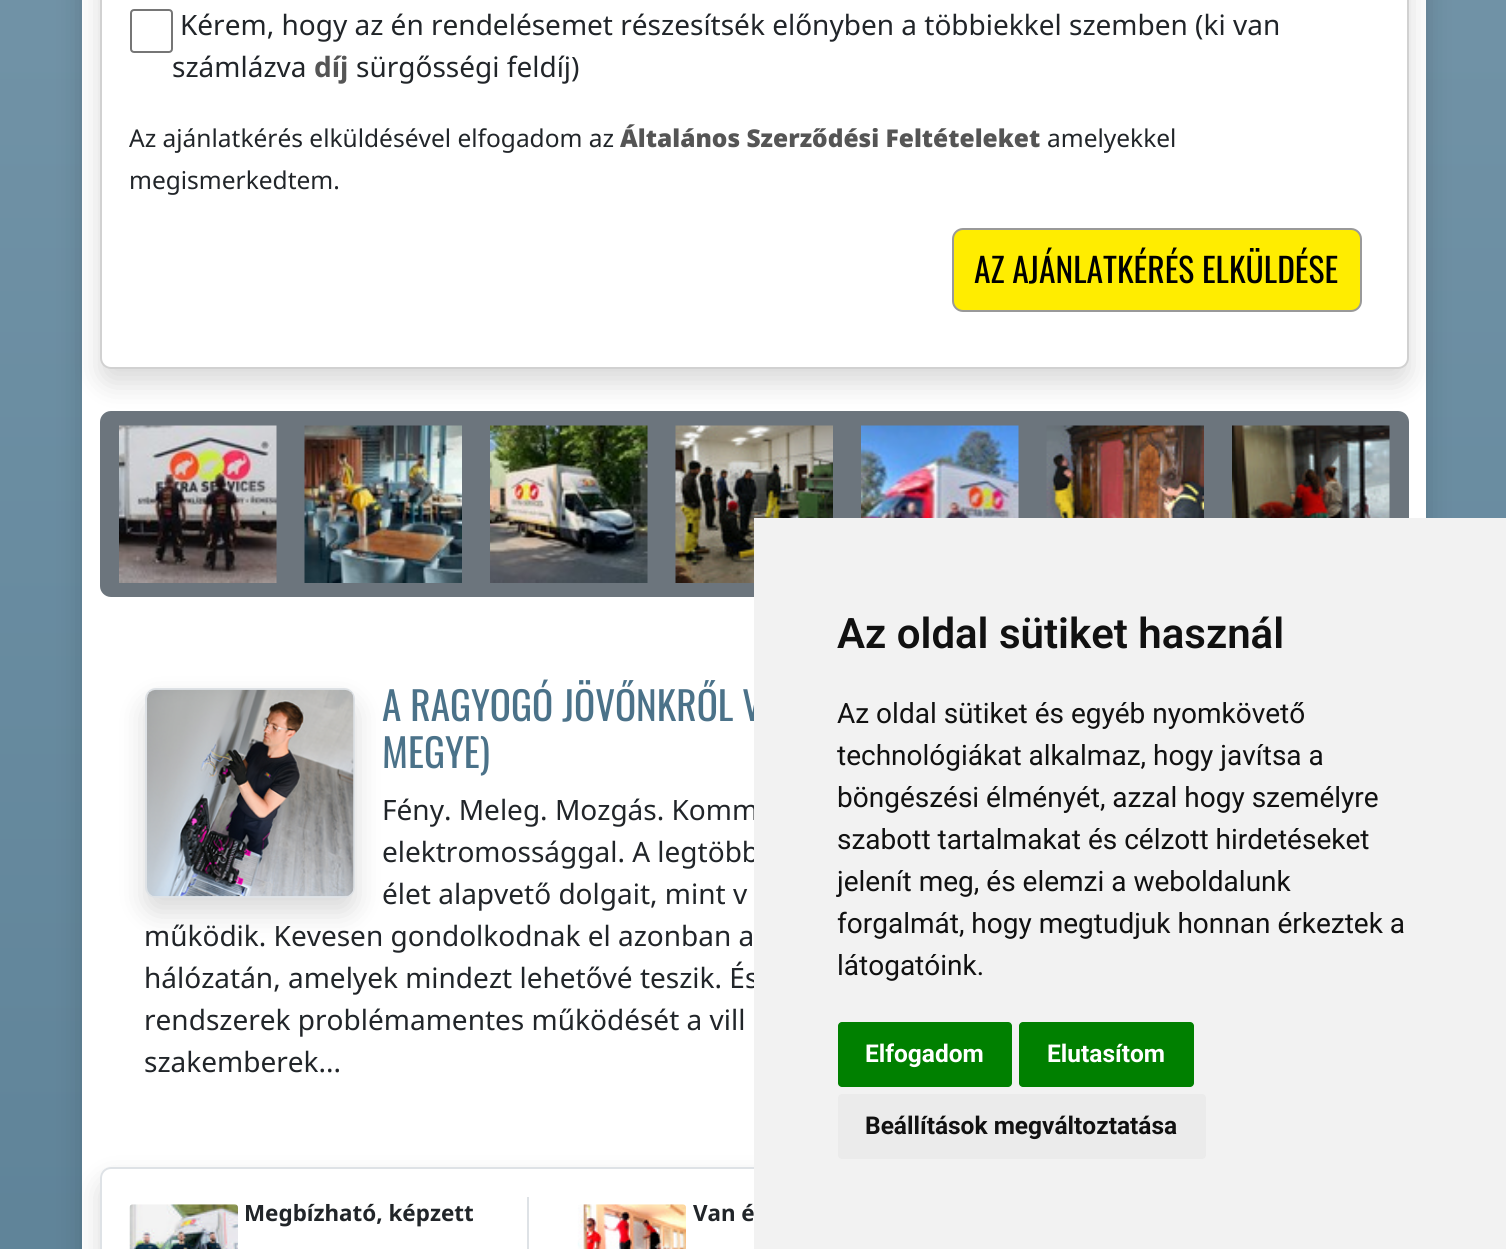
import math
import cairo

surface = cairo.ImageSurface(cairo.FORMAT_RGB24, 1506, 1249)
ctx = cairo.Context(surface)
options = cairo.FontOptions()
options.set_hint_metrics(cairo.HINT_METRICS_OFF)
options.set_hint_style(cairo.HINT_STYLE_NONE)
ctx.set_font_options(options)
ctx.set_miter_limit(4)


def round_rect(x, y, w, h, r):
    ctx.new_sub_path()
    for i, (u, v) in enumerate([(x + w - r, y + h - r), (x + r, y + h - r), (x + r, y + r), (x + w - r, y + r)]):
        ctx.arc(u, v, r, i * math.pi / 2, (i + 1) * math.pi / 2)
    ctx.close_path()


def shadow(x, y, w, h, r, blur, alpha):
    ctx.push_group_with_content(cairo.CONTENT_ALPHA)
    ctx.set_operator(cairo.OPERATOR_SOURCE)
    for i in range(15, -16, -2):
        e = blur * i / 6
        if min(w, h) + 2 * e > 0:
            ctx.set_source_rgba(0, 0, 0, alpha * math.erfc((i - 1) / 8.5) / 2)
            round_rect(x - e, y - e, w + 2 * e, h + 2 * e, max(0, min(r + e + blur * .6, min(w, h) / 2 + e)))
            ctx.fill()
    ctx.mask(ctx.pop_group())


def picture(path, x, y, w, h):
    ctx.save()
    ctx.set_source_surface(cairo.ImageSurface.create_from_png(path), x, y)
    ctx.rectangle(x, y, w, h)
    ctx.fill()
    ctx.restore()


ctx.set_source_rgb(1, 1, 1)
ctx.paint()
gradient = cairo.LinearGradient(753, -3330, 753, 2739)
gradient.add_color_stop_rgba(0, 0.62, 0.729, 0.792, 1)
gradient.add_color_stop_rgba(1, 0.294, 0.447, 0.537, 1)
ctx.set_source(gradient)
ctx.rectangle(0, 0, 1506, 1249)
ctx.fill()
ctx.set_source_rgb(0, 0, 0)
shadow(82, -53, 1344, 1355, 11, 14, 0.15)
ctx.set_source_rgb(1, 1, 1)
ctx.rectangle(82, 0, 1344, 1249)
ctx.fill()
ctx.set_source_rgb(0.424, 0.459, 0.49)
round_rect(100, 411, 1309, 186, 11)
ctx.fill()
picture("img1.png", 119, 425, 158, 158)
picture("img2.png", 304, 425, 158, 158)
picture("img3.png", 490, 425, 158, 158)
picture("img4.png", 675, 425, 158, 158)
picture("img5.png", 861, 425, 158, 93)
picture("img6.png", 1046, 425, 158, 93)
picture("img7.png", 1232, 425, 158, 93)
ctx.set_source_rgb(0, 0, 0)
shadow(100, -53, 1309, 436, 11, 14, 0.15)
ctx.set_source_rgb(1, 1, 1)
round_rect(100, -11, 1309, 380, 11)
ctx.fill()
round_rect(101, -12, 1307, 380, 10)
ctx.set_source_rgba(0, 0, 0, 0.18)
ctx.stroke()
round_rect(131, 10, 41, 42, 3)
ctx.set_source_rgb(0.463, 0.463, 0.463)
ctx.stroke()
ctx.select_font_face("Noto Sans")
ctx.set_font_size(28)
ctx.set_source_rgb(0.129, 0.145, 0.161)
ctx.move_to(180, 35)
ctx.show_text("Kérem, hogy az én rendelésemet részesítsék előnyben a többiekkel szemben (ki van")
ctx.move_to(172, 77)
ctx.show_text("számlázva")
ctx.select_font_face("Noto Sans", cairo.FONT_SLANT_NORMAL, cairo.FONT_WEIGHT_BOLD)
ctx.set_source_rgb(0.333, 0.333, 0.333)
ctx.move_to(314, 77)
ctx.show_text("díj")
ctx.select_font_face("Noto Sans")
ctx.set_source_rgb(0.129, 0.145, 0.161)
ctx.move_to(356, 77)
ctx.show_text("sürgősségi feldíj)")
ctx.set_font_size(24.5)
ctx.move_to(129, 147)
ctx.show_text("Az ajánlatkérés elküldésével elfogadom az")
ctx.select_font_face("Noto Sans Black")
ctx.set_source_rgb(0.333, 0.333, 0.333)
ctx.move_to(620, 147)
ctx.show_text("Általános Szerződési Feltételeket")
ctx.select_font_face("Noto Sans")
ctx.set_source_rgb(0.129, 0.145, 0.161)
ctx.move_to(1047, 147)
ctx.show_text("amelyekkel")
ctx.move_to(129, 189)
ctx.show_text("megismerkedtem.")
ctx.set_source_rgb(1, 0.929, 0)
round_rect(953, 229, 408, 82, 10)
ctx.fill_preserve()
ctx.set_source_rgb(0.6, 0.6, 0.6)
ctx.stroke()
ctx.select_font_face("Oswald")
ctx.set_font_size(33.6)
ctx.set_source_rgb(0, 0, 0)
ctx.move_to(974, 283)
ctx.show_text("AZ AJÁNLATKÉRÉS ELKÜLDÉSE")
ctx.set_source_rgb(0, 0, 0)
shadow(145, 702, 210, 210, 11, 14, 0.15)
round_rect(146, 689, 208, 208, 10)
ctx.set_source_rgb(0.871, 0.886, 0.902)
ctx.stroke()
picture("img8.png", 147, 689, 207, 208)
ctx.set_font_size(39.25)
ctx.set_source_rgb(0.294, 0.447, 0.537)
ctx.move_to(382, 721)
ctx.show_text("A RAGYOGÓ JÖVŐNKRŐL V")
ctx.move_to(382, 768)
ctx.show_text("MEGYE)")
ctx.select_font_face("Noto Sans")
ctx.set_font_size(28)
ctx.set_source_rgb(0.129, 0.145, 0.161)
ctx.move_to(382, 820)
ctx.show_text("Fény. Meleg. Mozgás. Komm")
ctx.move_to(382, 862)
ctx.show_text("elektromossággal. A legtöbb")
ctx.move_to(382, 904)
ctx.show_text("élet alapvető dolgait, mint v")
ctx.move_to(144, 946)
ctx.show_text("működik. Kevesen gondolkodnak el azonban a")
ctx.move_to(144, 988)
ctx.show_text("hálózatán, amelyek mindezt lehetővé teszik. És")
ctx.move_to(144, 1030)
ctx.show_text("rendszerek problémamentes működését a vill")
ctx.move_to(144, 1072)
ctx.show_text("szakemberek...")
ctx.save()
ctx.set_fill_rule(cairo.FILL_RULE_EVEN_ODD)
ctx.new_path()
ctx.move_to(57, 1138)
ctx.line_to(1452, 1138)
ctx.line_to(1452, 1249)
ctx.line_to(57, 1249)
ctx.close_path()
ctx.move_to(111, 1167)
ctx.line_to(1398, 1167)
ctx.curve_to(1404, 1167, 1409, 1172, 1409, 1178)
ctx.line_to(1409, 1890)
ctx.curve_to(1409, 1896, 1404, 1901, 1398, 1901)
ctx.line_to(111, 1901)
ctx.curve_to(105, 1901, 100, 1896, 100, 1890)
ctx.line_to(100, 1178)
ctx.curve_to(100, 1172, 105, 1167, 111, 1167)
ctx.close_path()
ctx.clip()
ctx.set_source_rgb(0, 0, 0)
shadow(100, 1181, 1309, 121, 11, 14, 0.15)
ctx.restore()
round_rect(101, 1168, 1307, 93, 10)
ctx.set_source_rgb(0.871, 0.886, 0.902)
ctx.stroke()
ctx.rectangle(527, 1197, 2, 52)
ctx.fill()
picture("img9.png", 129, 1204, 109, 45)
ctx.select_font_face("Noto Sans", cairo.FONT_SLANT_NORMAL, cairo.FONT_WEIGHT_BOLD)
ctx.set_font_size(22.4)
ctx.set_source_rgb(0.129, 0.145, 0.161)
ctx.move_to(244, 1221)
ctx.show_text("Megbízható, képzett")
picture("img10.png", 577, 1204, 109, 45)
ctx.move_to(693, 1221)
ctx.show_text("Van é")
ctx.set_source_rgb(0.949, 0.949, 0.949)
ctx.rectangle(754, 518, 752, 731)
ctx.fill()
ctx.select_font_face("Roboto SemiBold")
ctx.set_font_size(42)
ctx.set_source_rgb(0.067, 0.067, 0.067)
ctx.move_to(837, 648)
ctx.show_text("Az oldal sütiket használ")
ctx.select_font_face("Roboto")
ctx.set_font_size(28)
ctx.move_to(837, 723)
ctx.show_text("Az oldal sütiket és egyéb nyomkövető")
ctx.move_to(837, 765)
ctx.show_text("technológiákat alkalmaz, hogy javítsa a")
ctx.move_to(837, 807)
ctx.show_text("böngészési élményét, azzal hogy személyre")
ctx.move_to(837, 849)
ctx.show_text("szabott tartalmakat és célzott hirdetéseket")
ctx.move_to(837, 891)
ctx.show_text("jelenít meg, és elemzi a weboldalunk")
ctx.move_to(837, 933)
ctx.show_text("forgalmát, hogy megtudjuk honnan érkeztek a")
ctx.move_to(837, 975)
ctx.show_text("látogatóink.")
ctx.set_source_rgb(0, 0.502, 0)
round_rect(838, 1022, 174, 65, 4)
ctx.fill()
ctx.select_font_face("Roboto", cairo.FONT_SLANT_NORMAL, cairo.FONT_WEIGHT_BOLD)
ctx.set_font_size(24.5)
ctx.set_source_rgb(1, 1, 1)
ctx.move_to(865, 1062)
ctx.show_text("Elfogadom")
ctx.set_source_rgb(0, 0.502, 0)
round_rect(1019, 1022, 175, 65, 4)
ctx.fill()
ctx.set_source_rgb(1, 1, 1)
ctx.move_to(1047, 1062)
ctx.show_text("Elutasítom")
ctx.set_source_rgb(0.918, 0.918, 0.918)
round_rect(838, 1094, 368, 65, 4)
ctx.fill()
ctx.set_source_rgb(0.067, 0.067, 0.067)
ctx.move_to(865, 1134)
ctx.show_text("Beállítások megváltoztatása")
surface.write_to_png("page.png")
